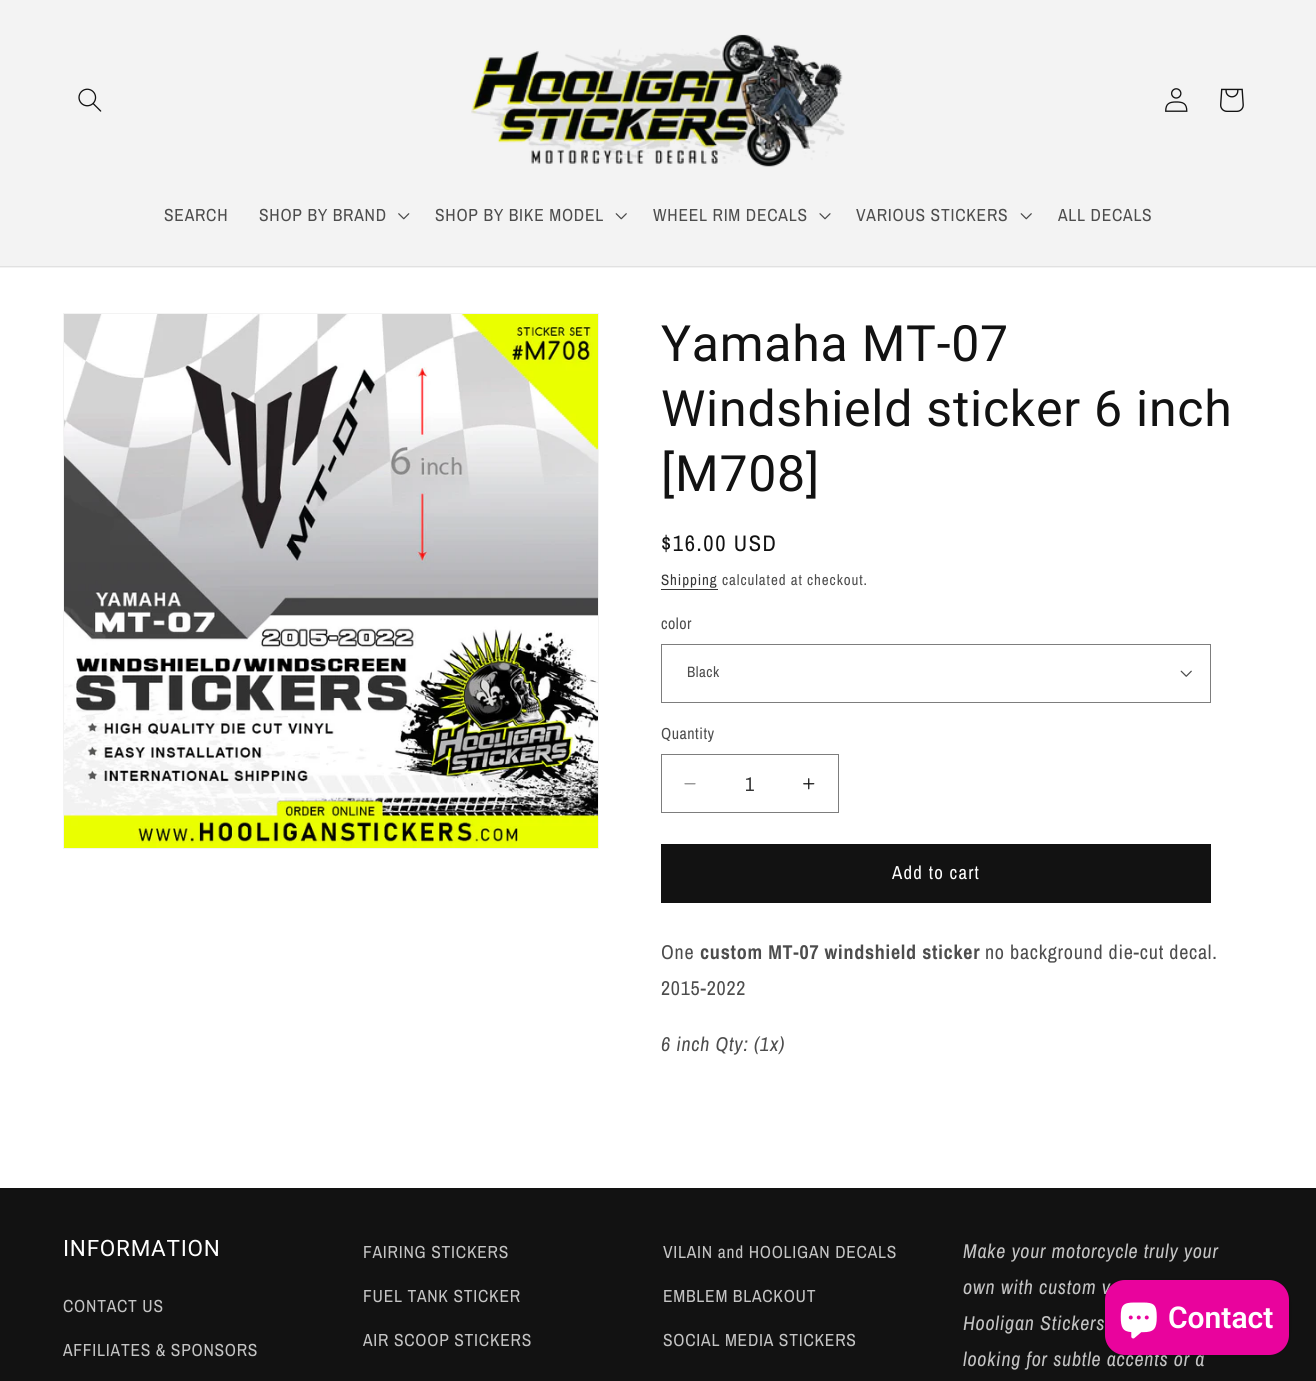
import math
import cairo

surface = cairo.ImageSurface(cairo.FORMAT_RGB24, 1316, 1381)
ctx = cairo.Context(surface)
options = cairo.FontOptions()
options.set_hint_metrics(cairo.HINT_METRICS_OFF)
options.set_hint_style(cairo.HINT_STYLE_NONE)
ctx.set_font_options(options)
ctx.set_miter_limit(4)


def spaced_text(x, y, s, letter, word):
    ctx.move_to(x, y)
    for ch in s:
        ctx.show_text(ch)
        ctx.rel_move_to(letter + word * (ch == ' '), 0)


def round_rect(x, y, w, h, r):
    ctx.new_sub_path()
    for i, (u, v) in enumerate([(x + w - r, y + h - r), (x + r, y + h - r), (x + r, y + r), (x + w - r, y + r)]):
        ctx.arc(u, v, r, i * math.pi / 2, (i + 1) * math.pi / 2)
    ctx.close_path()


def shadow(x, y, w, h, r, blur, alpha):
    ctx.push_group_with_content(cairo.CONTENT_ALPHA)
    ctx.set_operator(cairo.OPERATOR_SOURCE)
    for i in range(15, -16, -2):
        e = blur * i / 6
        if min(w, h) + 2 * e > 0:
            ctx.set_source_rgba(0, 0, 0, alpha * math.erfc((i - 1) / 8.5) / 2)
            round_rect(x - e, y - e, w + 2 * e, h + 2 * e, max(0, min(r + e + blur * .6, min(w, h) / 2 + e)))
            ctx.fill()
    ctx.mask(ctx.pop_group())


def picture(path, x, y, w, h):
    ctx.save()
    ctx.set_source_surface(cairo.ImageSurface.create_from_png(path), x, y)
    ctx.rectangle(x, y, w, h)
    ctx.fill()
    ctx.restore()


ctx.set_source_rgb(1, 1, 1)
ctx.paint()
ctx.set_source_rgb(0.953, 0.953, 0.953)
ctx.rectangle(0, 0, 1316, 268)
ctx.fill()
ctx.set_source_rgb(0.882, 0.882, 0.882)
ctx.rectangle(0, 266, 1316, 1)
ctx.fill()
picture("img1.png", 78, 88, 24, 24)
picture("img2.png", 471, 34, 374, 133)
picture("img3.png", 1165, 88, 23, 24)
picture("img4.png", 1220, 88, 24, 24)
ctx.select_font_face("Archivo Narrow")
ctx.set_font_size(17.5)
ctx.set_source_rgb(0.302, 0.302, 0.302)
spaced_text(164, 221, "SEARCH", 0.75, 0)
spaced_text(259, 221, "SHOP BY BRAND", 0.75, 0)
picture("img5.png", 398, 213, 12, 7)
spaced_text(435, 221, "SHOP BY BIKE MODEL", 0.75, 0)
picture("img6.png", 615, 213, 12, 7)
spaced_text(653, 221, "WHEEL RIM DECALS", 0.75, 0)
picture("img7.png", 819, 213, 12, 7)
spaced_text(856, 221, "VARIOUS STICKERS", 0.75, 0)
picture("img6.png", 1020, 213, 12, 7)
spaced_text(1058, 221, "ALL DECALS", 0.75, 0)
ctx.rectangle(63.5, 313.5, 535, 535)
ctx.set_source_rgb(0.953, 0.953, 0.953)
ctx.set_line_width(1)
ctx.stroke()
picture("img8.png", 64, 314, 534, 534)
ctx.select_font_face("Roboto")
ctx.set_font_size(50)
ctx.set_source_rgb(0.071, 0.071, 0.071)
spaced_text(661, 361, "Yamaha MT-07", 0.75, 0)
spaced_text(661, 426, "Windshield sticker 6 inch", 0.75, 0)
spaced_text(661, 491, "[M708]", 0.75, 0)
ctx.select_font_face("Archivo Narrow")
ctx.set_font_size(22.5)
spaced_text(661, 551, "$16.00 USD", 1.6, 0)
ctx.set_font_size(15)
ctx.set_source_rgb(0.212, 0.212, 0.212)
spaced_text(661, 585, "Shipping", 0.9, 0)
ctx.rectangle(661, 589, 57, 1)
ctx.fill()
ctx.set_source_rgb(0.302, 0.302, 0.302)
spaced_text(722, 585, "calculated at checkout.", 0.9, 0)
ctx.set_font_size(16)
spaced_text(661, 629, "color", 0.5, 0)
picture("img9.png", 1180, 670, 12, 7)
ctx.rectangle(661.5, 644.5, 549, 58)
ctx.set_source_rgb(0.49, 0.49, 0.49)
ctx.stroke()
ctx.set_font_size(15)
ctx.set_source_rgb(0.302, 0.302, 0.302)
spaced_text(687, 677, "Black", 0.5, 0)
ctx.set_font_size(16)
spaced_text(661, 739, "Quantity", 0.5, 0)
picture("img10.png", 684, 783, 12, 2)
picture("img11.png", 803, 778, 12, 12)
ctx.rectangle(661.5, 754.5, 177, 58)
ctx.set_source_rgb(0.49, 0.49, 0.49)
ctx.stroke()
ctx.set_font_size(20)
ctx.set_source_rgb(0.212, 0.212, 0.212)
ctx.move_to(745, 791)
ctx.show_text("1")
ctx.set_source_rgb(0.071, 0.071, 0.071)
ctx.rectangle(661, 844, 550, 59)
ctx.fill()
ctx.set_font_size(18.75)
ctx.set_source_rgb(1, 1, 1)
spaced_text(892, 879, "Add to cart", 1.25, 0)
ctx.set_font_size(20)
ctx.set_source_rgb(0.302, 0.302, 0.302)
spaced_text(661, 959, "One", 0.75, 0)
ctx.select_font_face("Archivo Narrow", cairo.FONT_SLANT_NORMAL, cairo.FONT_WEIGHT_BOLD)
spaced_text(700, 959, "custom MT-07 windshield sticker", 0.75, 0)
ctx.select_font_face("Archivo Narrow")
spaced_text(985, 959, "no background die-cut decal.", 0.75, 0)
spaced_text(661, 995, "2015-2022", 0.75, 0)
ctx.select_font_face("Archivo Narrow", cairo.FONT_SLANT_ITALIC)
spaced_text(661, 1051, "6 inch Qty: (1x)", 0.75, 0)
ctx.set_source_rgb(0.071, 0.071, 0.071)
ctx.rectangle(0, 1188, 1316, 193)
ctx.fill()
ctx.select_font_face("Roboto")
ctx.set_font_size(22.5)
ctx.set_source_rgb(1, 1, 1)
spaced_text(63, 1256, "INFORMATION", 0.75, 0)
ctx.select_font_face("Archivo Narrow")
ctx.set_font_size(17.5)
ctx.set_source_rgb(0.769, 0.769, 0.769)
spaced_text(63, 1312, "CONTACT US", 0.75, 0)
spaced_text(63, 1356, "AFFILIATES & SPONSORS", 0.75, 0)
spaced_text(363, 1258, "FAIRING STICKERS", 0.75, 0)
spaced_text(363, 1302, "FUEL TANK STICKER", 0.75, 0)
spaced_text(363, 1346, "AIR SCOOP STICKERS", 0.75, 0)
spaced_text(663, 1258, "VILAIN and HOOLIGAN DECALS", 0.75, 0)
spaced_text(663, 1302, "EMBLEM BLACKOUT", 0.75, 0)
spaced_text(663, 1346, "SOCIAL MEDIA STICKERS", 0.75, 0)
ctx.select_font_face("Archivo Narrow", cairo.FONT_SLANT_ITALIC)
ctx.set_font_size(20)
spaced_text(963, 1258, "Make your motorcycle truly your", 0.75, 0)
spaced_text(963, 1294, "own with custom v", 0.75, 0)
spaced_text(963, 1330, "Hooligan Stickers", 0.75, 0)
spaced_text(963, 1366, "looking for subtle accents or a", 0.75, 0)
ctx.set_source_rgb(0, 0, 0)
shadow(1105, 1280, 184, 75, 20, 3, 0.15)
ctx.set_source_rgb(0.914, 0.012, 0.616)
round_rect(1105, 1280, 184, 75, 20)
ctx.fill()
picture("img12.png", 1120, 1302, 37, 37)
ctx.select_font_face("Roboto SemiBold")
ctx.set_font_size(30)
ctx.set_source_rgb(1, 1, 1)
ctx.move_to(1168, 1328)
ctx.show_text("Contact")
surface.write_to_png("page.png")
